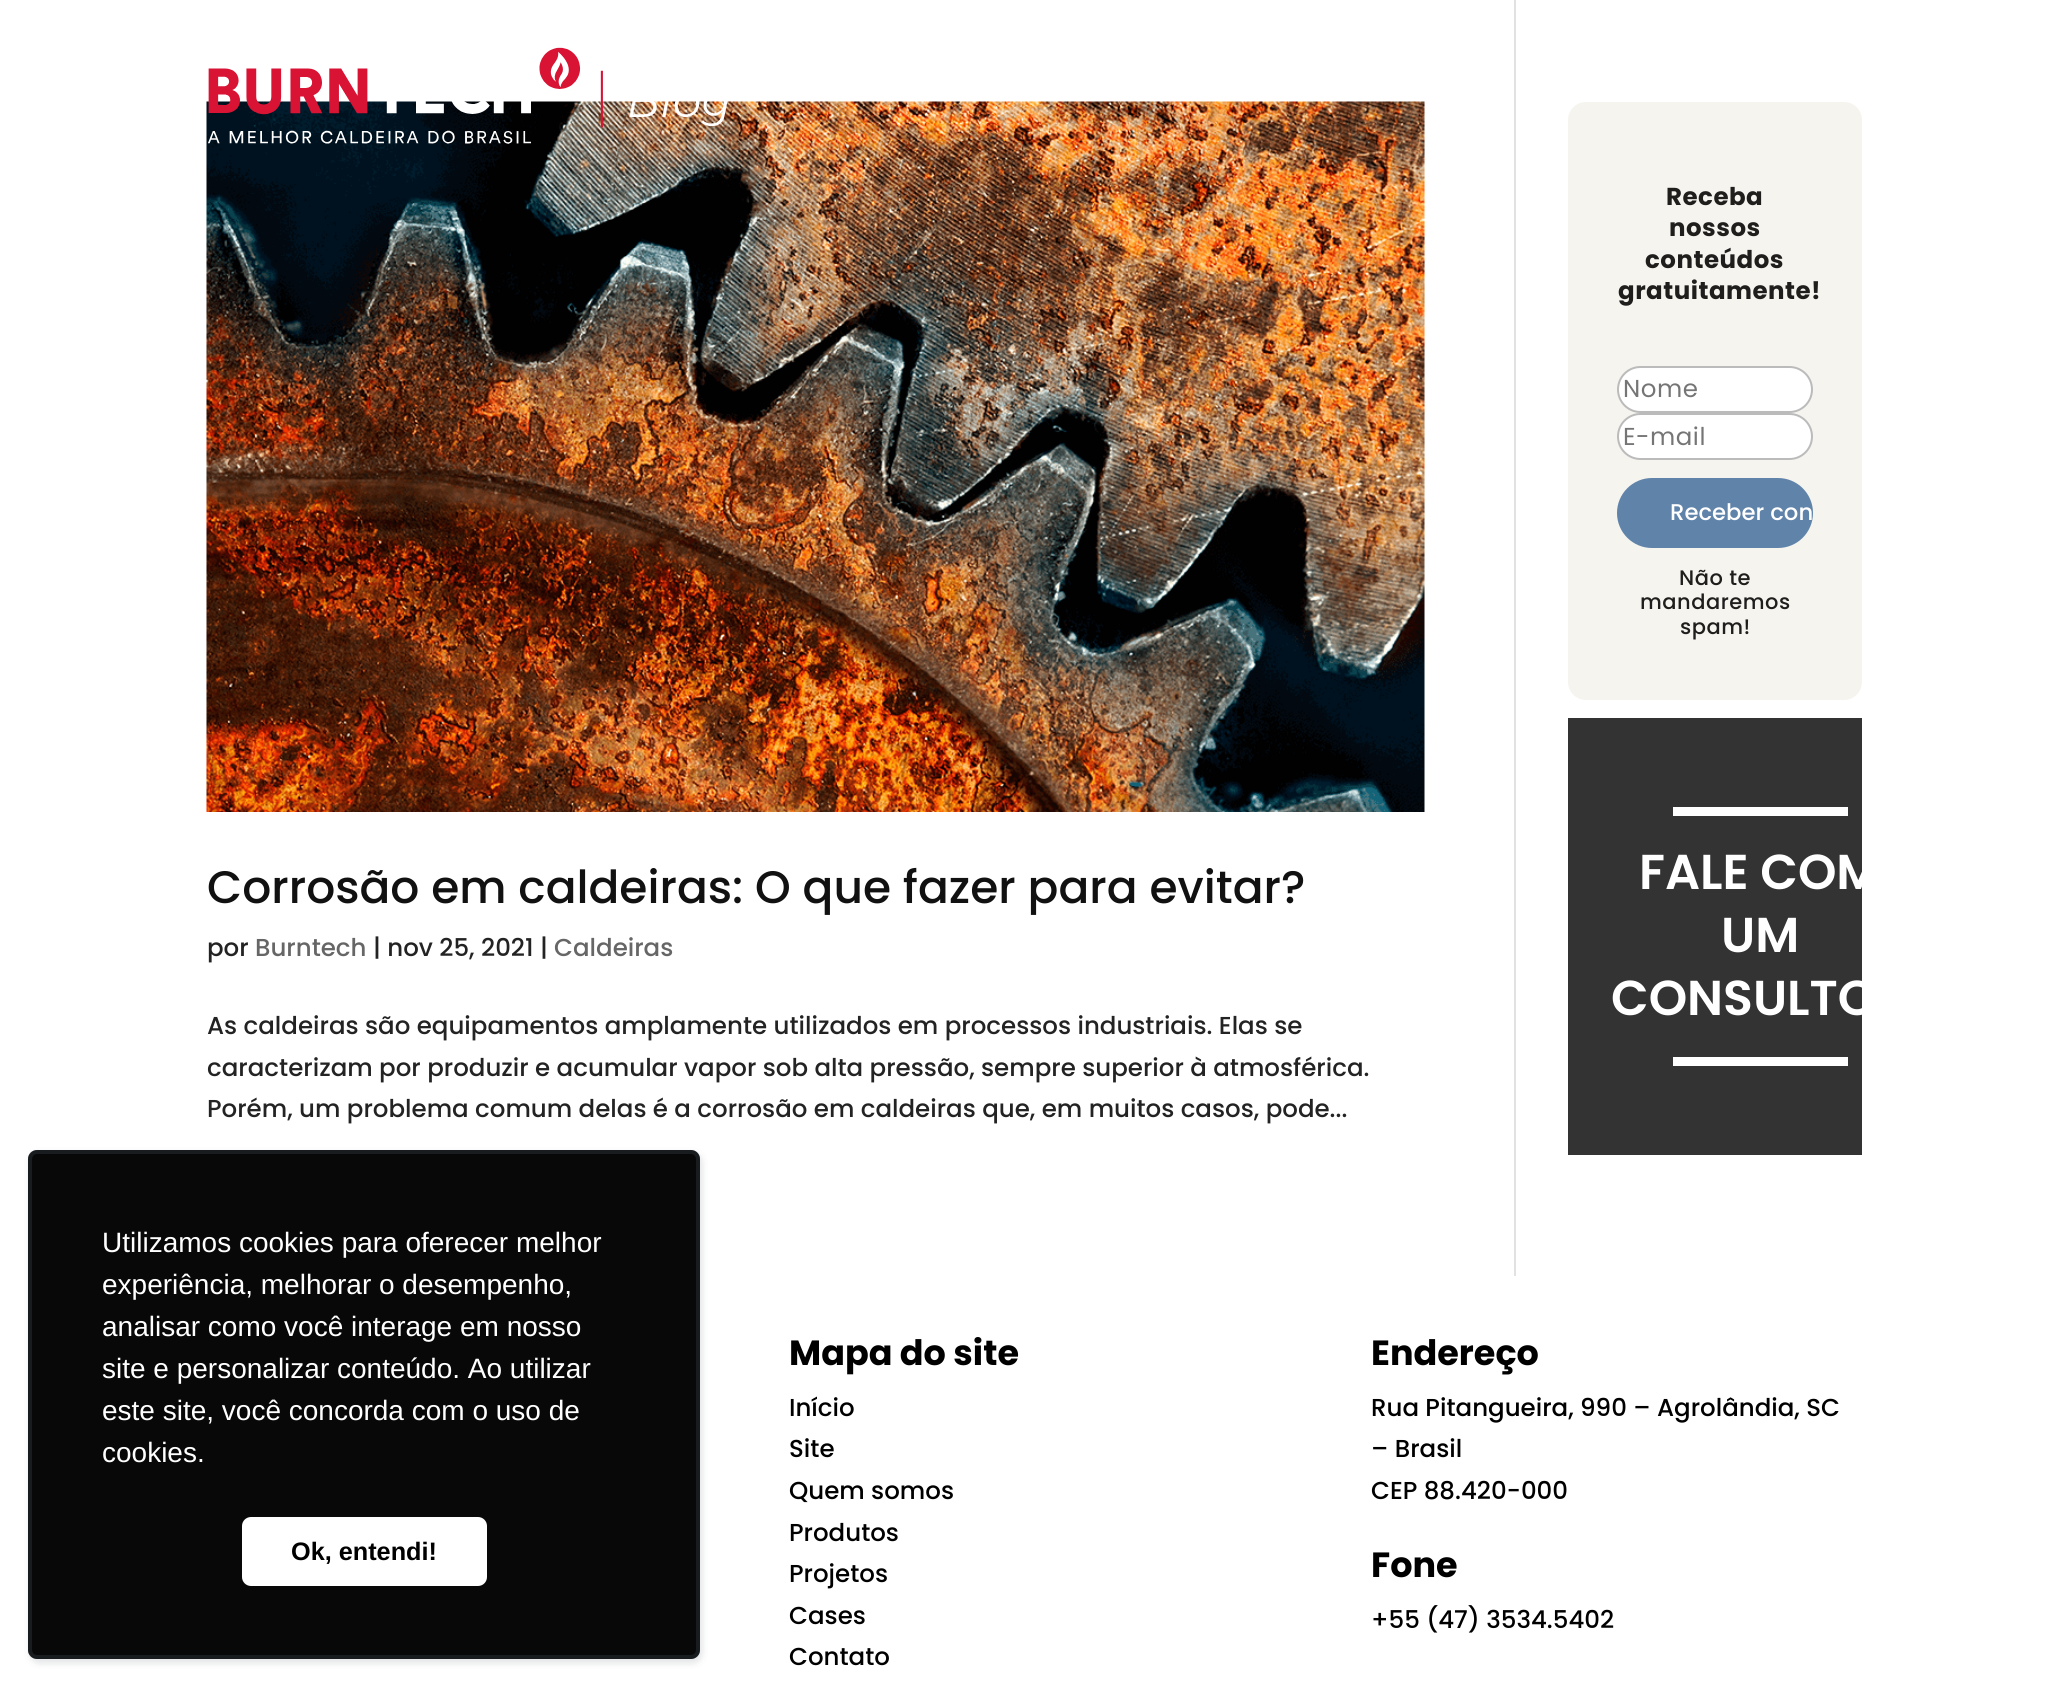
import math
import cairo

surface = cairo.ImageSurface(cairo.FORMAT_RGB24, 2068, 1687)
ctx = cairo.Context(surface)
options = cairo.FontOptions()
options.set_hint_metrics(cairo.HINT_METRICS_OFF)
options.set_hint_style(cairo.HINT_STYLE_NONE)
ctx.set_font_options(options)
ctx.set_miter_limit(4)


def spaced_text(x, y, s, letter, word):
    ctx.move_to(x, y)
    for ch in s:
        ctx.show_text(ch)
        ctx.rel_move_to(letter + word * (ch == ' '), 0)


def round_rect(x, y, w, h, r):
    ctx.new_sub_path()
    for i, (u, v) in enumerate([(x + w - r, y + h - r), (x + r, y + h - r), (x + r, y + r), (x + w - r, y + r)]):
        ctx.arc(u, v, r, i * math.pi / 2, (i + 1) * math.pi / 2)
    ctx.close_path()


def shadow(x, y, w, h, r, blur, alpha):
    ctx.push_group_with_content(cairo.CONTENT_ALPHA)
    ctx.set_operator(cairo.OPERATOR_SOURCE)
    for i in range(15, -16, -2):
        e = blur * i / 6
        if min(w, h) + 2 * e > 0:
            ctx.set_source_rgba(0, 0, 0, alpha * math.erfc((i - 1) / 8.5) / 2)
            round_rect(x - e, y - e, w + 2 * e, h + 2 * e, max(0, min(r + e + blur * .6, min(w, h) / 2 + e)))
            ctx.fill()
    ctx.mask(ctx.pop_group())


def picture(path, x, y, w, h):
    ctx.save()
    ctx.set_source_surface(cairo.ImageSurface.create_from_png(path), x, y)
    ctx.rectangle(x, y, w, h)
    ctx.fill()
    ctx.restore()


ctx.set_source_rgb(1, 1, 1)
ctx.paint()
picture("img2.png", 206, 101, 1219, 711)
picture("img1.png", 208, 47, 520, 97)
ctx.set_source_rgb(0.886, 0.886, 0.886)
ctx.rectangle(1514, 0, 2, 1276)
ctx.fill()
ctx.select_font_face("Poppins Medium")
ctx.set_font_size(45.5)
ctx.set_source_rgb(0.067, 0.067, 0.067)
ctx.move_to(207, 903)
ctx.show_text("Corrosão em caldeiras: O que fazer para evitar?")
ctx.set_font_size(24.5)
ctx.set_source_rgb(0.137, 0.137, 0.137)
ctx.move_to(207, 956)
ctx.show_text("por")
ctx.set_source_rgb(0.4, 0.4, 0.4)
ctx.move_to(255, 956)
ctx.show_text("Burntech")
ctx.set_source_rgb(0.137, 0.137, 0.137)
ctx.move_to(373, 956)
ctx.show_text("| nov 25, 2021 |")
ctx.set_source_rgb(0.4, 0.4, 0.4)
ctx.move_to(554, 956)
ctx.show_text("Caldeiras")
ctx.set_source_rgb(0.137, 0.137, 0.137)
ctx.move_to(207, 1034)
ctx.show_text("As caldeiras são equipamentos amplamente utilizados em processos industriais. Elas se")
ctx.move_to(207, 1076)
ctx.show_text("caracterizam por produzir e acumular vapor sob alta pressão, sempre superior à atmosférica.")
ctx.move_to(207, 1117)
ctx.show_text("Porém, um problema comum delas é a corrosão em caldeiras que, em muitos casos, pode...")
ctx.set_source_rgb(0.961, 0.957, 0.937)
round_rect(1568, 102, 294, 598, 18)
ctx.fill()
ctx.select_font_face("Poppins", cairo.FONT_SLANT_NORMAL, cairo.FONT_WEIGHT_BOLD)
ctx.set_source_rgb(0.122, 0.118, 0.114)
spaced_text(1666, 205, "Receba", 0.5, 0)
spaced_text(1669, 236, "nossos", 0.5, 0)
spaced_text(1645, 268, "conteúdos", 0.5, 0)
spaced_text(1618, 299, "gratuitamente!", 0.5, 0)
ctx.set_source_rgb(1, 1, 1)
round_rect(1618, 367, 194, 45, 22.5)
ctx.fill_preserve()
ctx.set_source_rgb(0.733, 0.733, 0.733)
ctx.stroke()
ctx.select_font_face("Poppins")
ctx.set_source_rgb(0.459, 0.459, 0.459)
spaced_text(1623, 397, "Nome", 0.5, 0)
ctx.set_source_rgb(1, 1, 1)
round_rect(1618, 414, 194, 45, 22.5)
ctx.fill_preserve()
ctx.set_source_rgb(0.733, 0.733, 0.733)
ctx.stroke()
ctx.set_source_rgb(0.459, 0.459, 0.459)
spaced_text(1623, 445, "E-mail", 0.5, 0)
ctx.set_source_rgb(0.376, 0.514, 0.663)
round_rect(1617, 478, 196, 70, 35)
ctx.fill()
ctx.select_font_face("Poppins Medium")
ctx.set_font_size(22.75)
ctx.set_source_rgb(1, 1, 1)
ctx.move_to(1670, 520)
ctx.show_text("Receber con")
ctx.set_font_size(21)
ctx.set_source_rgb(0.122, 0.118, 0.114)
spaced_text(1679, 585, "Não te", 0.5, 0)
spaced_text(1640, 609, "mandaremos", 0.5, 0)
spaced_text(1680, 634, "spam!", 0.5, 0)
ctx.set_source_rgb(0.2, 0.2, 0.2)
ctx.rectangle(1568, 718, 294, 437)
ctx.fill()
ctx.set_source_rgb(1, 1, 1)
ctx.rectangle(1673, 807, 175, 9)
ctx.fill()
ctx.select_font_face("Poppins SemiBold")
ctx.set_font_size(49)
ctx.move_to(1639, 889)
ctx.show_text("FALE COM")
ctx.move_to(1721, 952)
ctx.show_text("UM")
ctx.move_to(1611, 1015)
ctx.show_text("CONSULTO")
ctx.rectangle(1673, 1057, 175, 9)
ctx.fill()
ctx.select_font_face("Poppins", cairo.FONT_SLANT_NORMAL, cairo.FONT_WEIGHT_BOLD)
ctx.set_font_size(35)
ctx.set_source_rgb(0, 0, 0)
ctx.move_to(789, 1365)
ctx.show_text("Mapa do site")
ctx.select_font_face("Poppins Medium")
ctx.set_font_size(24.5)
ctx.move_to(789, 1416)
ctx.show_text("Início")
ctx.move_to(789, 1457)
ctx.show_text("Site")
ctx.move_to(789, 1499)
ctx.show_text("Quem somos")
ctx.move_to(789, 1541)
ctx.show_text("Produtos")
ctx.move_to(789, 1582)
ctx.show_text("Projetos")
ctx.move_to(789, 1624)
ctx.show_text("Cases")
ctx.move_to(789, 1665)
ctx.show_text("Contato")
ctx.select_font_face("Poppins", cairo.FONT_SLANT_NORMAL, cairo.FONT_WEIGHT_BOLD)
ctx.set_font_size(35)
ctx.move_to(1371, 1365)
ctx.show_text("Endereço")
ctx.select_font_face("Poppins Medium")
ctx.set_font_size(24.5)
ctx.move_to(1371, 1416)
ctx.show_text("Rua Pitangueira, 990 – Agrolândia, SC")
ctx.move_to(1371, 1457)
ctx.show_text("– Brasil")
ctx.move_to(1371, 1499)
ctx.show_text("CEP 88.420-000")
ctx.select_font_face("Poppins", cairo.FONT_SLANT_NORMAL, cairo.FONT_WEIGHT_BOLD)
ctx.set_font_size(35)
ctx.move_to(1371, 1577)
ctx.show_text("Fone")
ctx.select_font_face("Poppins Medium")
ctx.set_font_size(24.5)
ctx.move_to(1371, 1628)
ctx.show_text("+55 (47) 3534.5402")
ctx.set_source_rgb(0.388, 0.431, 0.486)
shadow(30, 1153, 672, 510, 9, 3.5, 0.1)
round_rect(30, 1152, 668, 505, 7)
ctx.set_source_rgba(0.388, 0.431, 0.486, 0.2)
ctx.set_line_width(4)
ctx.stroke()
ctx.set_source_rgb(0.388, 0.431, 0.486)
shadow(30, 1153, 672, 510, 9, 3.5, 0.1)
ctx.set_source_rgb(0.035, 0.035, 0.035)
round_rect(28, 1150, 672, 509, 9)
ctx.fill()
round_rect(30, 1152, 668, 505, 7)
ctx.set_source_rgba(0.388, 0.431, 0.486, 0.2)
ctx.stroke()
ctx.select_font_face("Liberation Sans")
ctx.set_font_size(28)
ctx.set_source_rgb(1, 1, 1)
ctx.move_to(102, 1252)
ctx.show_text("Utilizamos cookies para oferecer melhor")
ctx.move_to(102, 1294)
ctx.show_text("experiência, melhorar o desempenho,")
ctx.move_to(102, 1336)
ctx.show_text("analisar como você interage em nosso")
ctx.move_to(102, 1378)
ctx.show_text("site e personalizar conteúdo. Ao utilizar")
ctx.move_to(102, 1420)
ctx.show_text("este site, você concorda com o uso de")
ctx.move_to(102, 1462)
ctx.show_text("cookies.")
round_rect(242, 1517, 245, 69, 9)
ctx.fill()
ctx.select_font_face("Liberation Sans", cairo.FONT_SLANT_NORMAL, cairo.FONT_WEIGHT_BOLD)
ctx.set_font_size(25.25)
ctx.set_source_rgb(0, 0, 0)
ctx.move_to(291, 1560)
ctx.show_text("Ok, entendi!")
surface.write_to_png("page.png")
